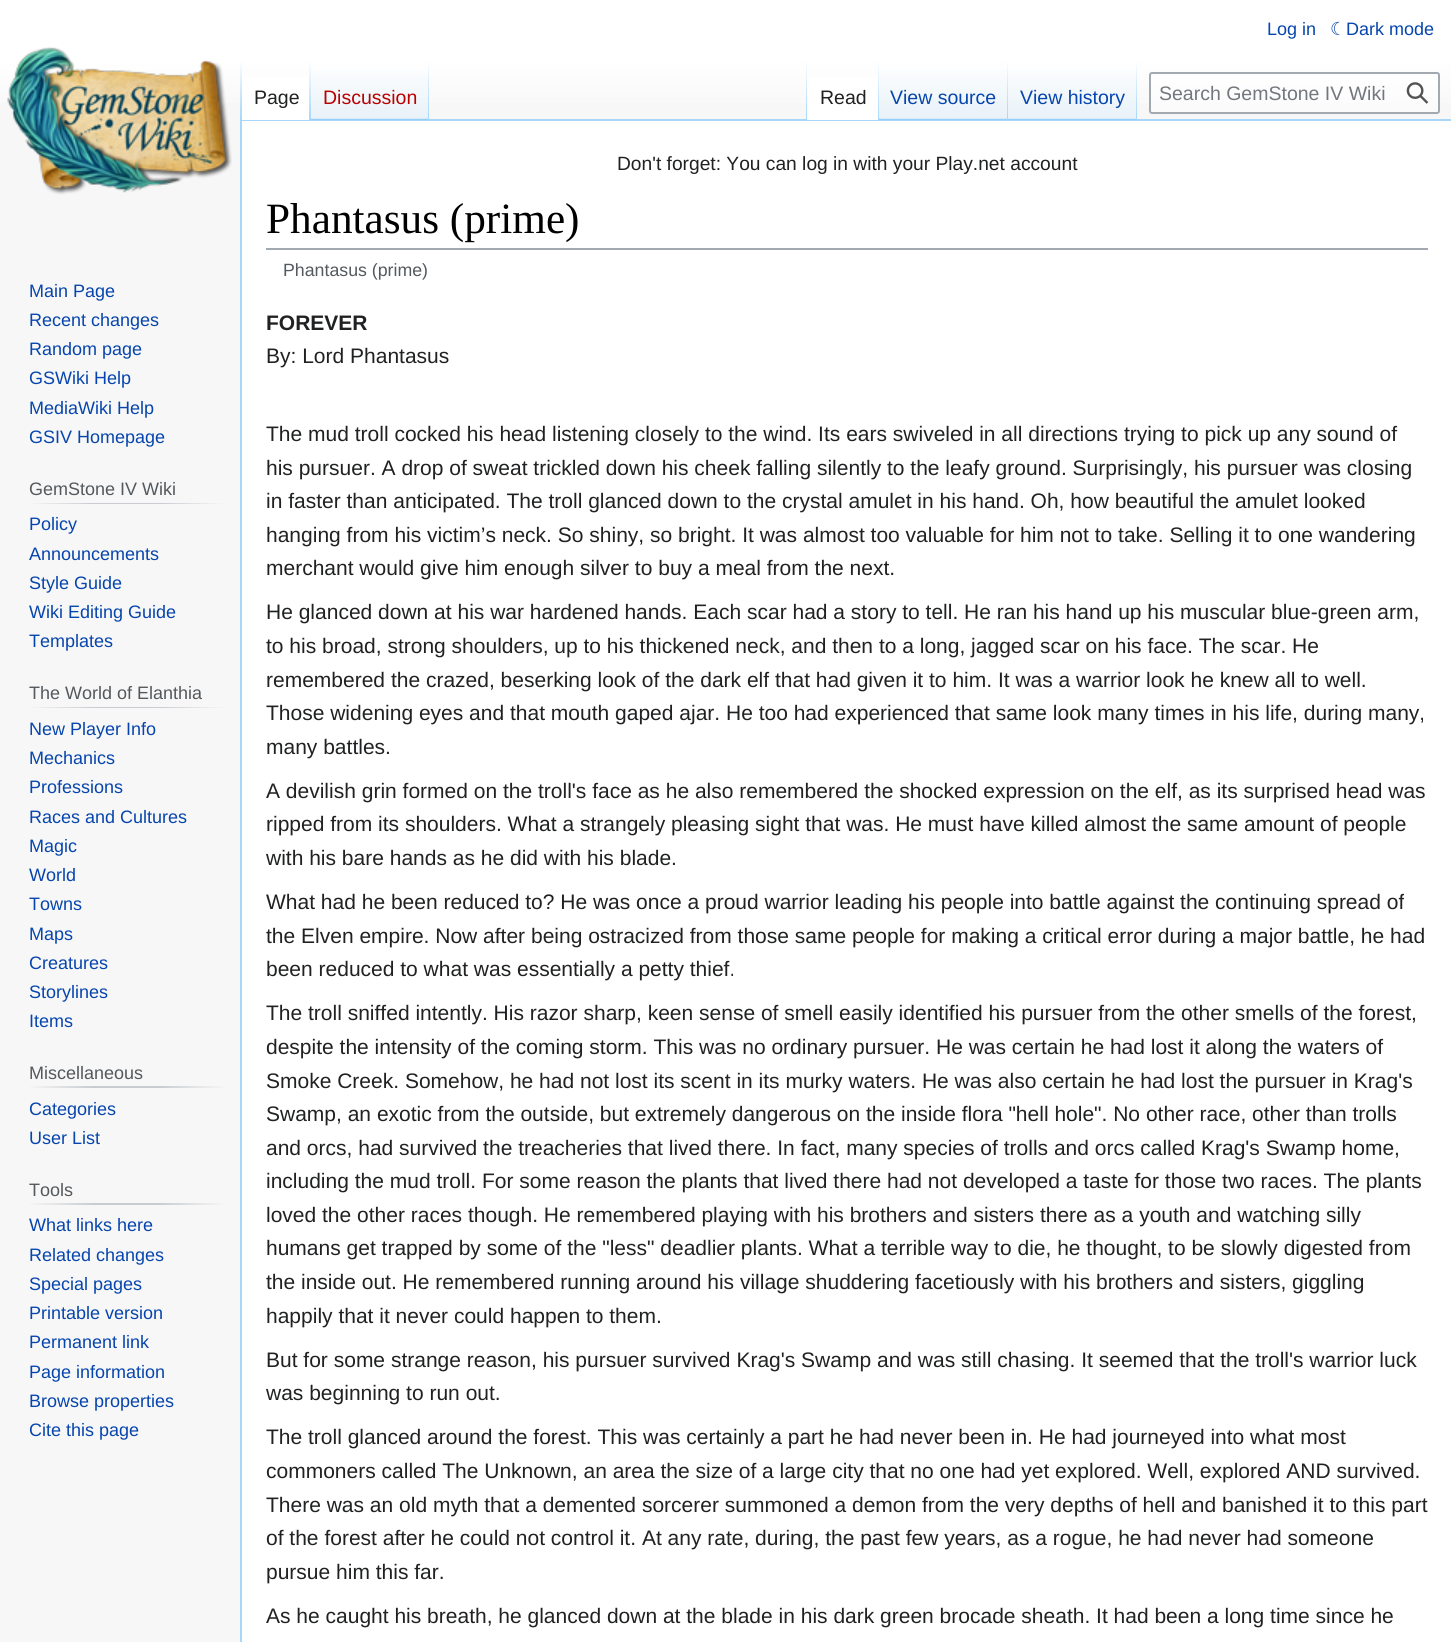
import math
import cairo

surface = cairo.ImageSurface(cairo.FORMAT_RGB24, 1451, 1642)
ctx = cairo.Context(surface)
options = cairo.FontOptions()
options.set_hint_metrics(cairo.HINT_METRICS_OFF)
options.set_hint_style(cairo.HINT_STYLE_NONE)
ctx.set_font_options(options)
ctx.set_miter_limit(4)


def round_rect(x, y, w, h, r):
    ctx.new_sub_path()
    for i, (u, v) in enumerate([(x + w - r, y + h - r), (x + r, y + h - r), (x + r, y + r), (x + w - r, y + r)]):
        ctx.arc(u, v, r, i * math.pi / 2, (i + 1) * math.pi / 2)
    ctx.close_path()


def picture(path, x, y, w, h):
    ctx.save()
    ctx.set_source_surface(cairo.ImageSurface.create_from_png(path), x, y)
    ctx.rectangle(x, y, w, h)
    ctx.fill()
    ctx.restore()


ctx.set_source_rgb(0.965, 0.965, 0.965)
ctx.paint()
gradient = cairo.LinearGradient(726, 0, 726, 120)
gradient.add_color_stop_rgba(0.5, 1, 1, 1, 1)
gradient.add_color_stop_rgba(1, 0.965, 0.965, 0.965, 1)
ctx.set_source(gradient)
ctx.rectangle(0, 0, 1451, 103)
ctx.fill()
ctx.select_font_face("Liberation Sans")
ctx.set_font_size(18)
ctx.set_source_rgb(0.024, 0.271, 0.678)
ctx.move_to(1267, 35)
ctx.show_text("Log in")
ctx.select_font_face("DejaVu Sans")
ctx.move_to(1330, 35)
ctx.show_text("☾")
ctx.select_font_face("Liberation Sans")
ctx.move_to(1346, 35)
ctx.show_text("Dark mode")
ctx.set_source_rgb(0.655, 0.843, 0.976)
ctx.rectangle(240, 119, 1211, 2)
ctx.fill()
ctx.rectangle(240, 119, 2, 1523)
ctx.fill()
gradient = cairo.LinearGradient(241, 60, 241, 120)
gradient.add_color_stop_rgba(0, 0.655, 0.843, 0.976, 0)
gradient.add_color_stop_rgba(1, 0.655, 0.843, 0.976, 1)
ctx.set_source(gradient)
ctx.rectangle(240, 60, 2, 60)
ctx.fill()
ctx.set_source_rgb(1, 1, 1)
ctx.rectangle(242, 77, 67, 43)
ctx.fill()
gradient = cairo.LinearGradient(310, 60, 310, 120)
gradient.add_color_stop_rgba(0, 1, 1, 1, 1)
gradient.add_color_stop_rgba(1, 0.655, 0.843, 0.976, 1)
ctx.set_source(gradient)
ctx.rectangle(309, 60, 2, 60)
ctx.fill()
ctx.set_font_size(19.5)
ctx.set_source_rgb(0.125, 0.129, 0.133)
ctx.move_to(254, 104)
ctx.show_text("Page")
gradient = cairo.LinearGradient(370, 120, 370, 60)
gradient.add_color_stop_rgba(0, 0.467, 0.757, 0.965, 1)
gradient.add_color_stop_rgba(0.03, 0.91, 0.949, 0.973, 1)
gradient.add_color_stop_rgba(1, 1, 1, 1, 1)
ctx.set_source(gradient)
ctx.rectangle(311, 69, 118, 51)
ctx.fill()
gradient = cairo.LinearGradient(428, 60, 428, 120)
gradient.add_color_stop_rgba(0, 0.655, 0.843, 0.976, 0)
gradient.add_color_stop_rgba(1, 0.655, 0.843, 0.976, 1)
ctx.set_source(gradient)
ctx.rectangle(428, 60, 1, 60)
ctx.fill()
ctx.set_source_rgb(0.729, 0, 0)
ctx.move_to(323, 104)
ctx.show_text("Discussion")
gradient = cairo.LinearGradient(806, 60, 806, 120)
gradient.add_color_stop_rgba(0, 0.655, 0.843, 0.976, 0)
gradient.add_color_stop_rgba(1, 0.655, 0.843, 0.976, 1)
ctx.set_source(gradient)
ctx.rectangle(806, 60, 1, 60)
ctx.fill()
ctx.set_source_rgb(1, 1, 1)
ctx.rectangle(807, 77, 71, 43)
ctx.fill()
gradient = cairo.LinearGradient(878, 60, 878, 120)
gradient.add_color_stop_rgba(0, 1, 1, 1, 1)
gradient.add_color_stop_rgba(1, 0.655, 0.843, 0.976, 1)
ctx.set_source(gradient)
ctx.rectangle(878, 60, 1, 60)
ctx.fill()
ctx.set_source_rgb(0.125, 0.129, 0.133)
ctx.move_to(820, 104)
ctx.show_text("Read")
gradient = cairo.LinearGradient(944, 120, 944, 60)
gradient.add_color_stop_rgba(0, 0.467, 0.757, 0.965, 1)
gradient.add_color_stop_rgba(0.03, 0.91, 0.949, 0.973, 1)
gradient.add_color_stop_rgba(1, 1, 1, 1, 1)
ctx.set_source(gradient)
ctx.rectangle(879, 69, 129, 51)
ctx.fill()
gradient = cairo.LinearGradient(1007, 60, 1007, 120)
gradient.add_color_stop_rgba(0, 0.655, 0.843, 0.976, 0)
gradient.add_color_stop_rgba(1, 0.655, 0.843, 0.976, 1)
ctx.set_source(gradient)
ctx.rectangle(1007, 60, 1, 60)
ctx.fill()
ctx.set_source_rgb(0.024, 0.271, 0.678)
ctx.move_to(890, 104)
ctx.show_text("View source")
gradient = cairo.LinearGradient(1073, 120, 1073, 60)
gradient.add_color_stop_rgba(0, 0.467, 0.757, 0.965, 1)
gradient.add_color_stop_rgba(0.03, 0.91, 0.949, 0.973, 1)
gradient.add_color_stop_rgba(1, 1, 1, 1, 1)
ctx.set_source(gradient)
ctx.rectangle(1008, 69, 129, 51)
ctx.fill()
gradient = cairo.LinearGradient(1136, 60, 1136, 120)
gradient.add_color_stop_rgba(0, 0.655, 0.843, 0.976, 0)
gradient.add_color_stop_rgba(1, 0.655, 0.843, 0.976, 1)
ctx.set_source(gradient)
ctx.rectangle(1136, 60, 1, 60)
ctx.fill()
ctx.set_source_rgb(0.024, 0.271, 0.678)
ctx.move_to(1020, 104)
ctx.show_text("View history")
ctx.set_source_rgba(1, 1, 1, 0.5)
round_rect(1150, 73, 289, 40, 2)
ctx.fill_preserve()
ctx.set_source_rgb(0.635, 0.663, 0.694)
ctx.stroke()
ctx.set_source_rgb(0.447, 0.467, 0.49)
ctx.move_to(1159, 100)
ctx.show_text("Search GemStone IV Wiki")
picture("img1.png", 1406, 82, 23, 22)
picture("img2.png", 7, 47, 225, 148)
ctx.set_font_size(18)
ctx.set_source_rgb(0.024, 0.271, 0.678)
ctx.move_to(29, 297)
ctx.show_text("Main Page")
ctx.move_to(29, 326)
ctx.show_text("Recent changes")
ctx.move_to(29, 355)
ctx.show_text("Random page")
ctx.move_to(29, 384)
ctx.show_text("GSWiki Help")
ctx.move_to(29, 414)
ctx.show_text("MediaWiki Help")
ctx.move_to(29, 443)
ctx.show_text("GSIV Homepage")
gradient = cairo.LinearGradient(29, 503, 225, 503)
gradient.add_color_stop_rgba(0, 0.965, 0.965, 0.965, 1)
gradient.add_color_stop_rgba(0.33, 0.784, 0.8, 0.82, 1)
gradient.add_color_stop_rgba(0.66, 0.784, 0.8, 0.82, 1)
gradient.add_color_stop_rgba(1, 0.965, 0.965, 0.965, 1)
ctx.set_source(gradient)
ctx.rectangle(29, 503, 196, 1)
ctx.fill()
ctx.set_source_rgb(0.329, 0.349, 0.365)
ctx.move_to(29, 495)
ctx.show_text("GemStone IV Wiki")
ctx.set_source_rgb(0.024, 0.271, 0.678)
ctx.move_to(29, 530)
ctx.show_text("Policy")
ctx.move_to(29, 560)
ctx.show_text("Announcements")
ctx.move_to(29, 589)
ctx.show_text("Style Guide")
ctx.move_to(29, 618)
ctx.show_text("Wiki Editing Guide")
ctx.move_to(29, 647)
ctx.show_text("Templates")
gradient = cairo.LinearGradient(29, 707, 225, 707)
gradient.add_color_stop_rgba(0, 0.965, 0.965, 0.965, 1)
gradient.add_color_stop_rgba(0.33, 0.784, 0.8, 0.82, 1)
gradient.add_color_stop_rgba(0.66, 0.784, 0.8, 0.82, 1)
gradient.add_color_stop_rgba(1, 0.965, 0.965, 0.965, 1)
ctx.set_source(gradient)
ctx.rectangle(29, 707, 196, 1)
ctx.fill()
ctx.set_source_rgb(0.329, 0.349, 0.365)
ctx.move_to(29, 699)
ctx.show_text("The World of Elanthia")
ctx.set_source_rgb(0.024, 0.271, 0.678)
ctx.move_to(29, 735)
ctx.show_text("New Player Info")
ctx.move_to(29, 764)
ctx.show_text("Mechanics")
ctx.move_to(29, 793)
ctx.show_text("Professions")
ctx.move_to(29, 823)
ctx.show_text("Races and Cultures")
ctx.move_to(29, 852)
ctx.show_text("Magic")
ctx.move_to(29, 881)
ctx.show_text("World")
ctx.move_to(29, 910)
ctx.show_text("Towns")
ctx.move_to(29, 940)
ctx.show_text("Maps")
ctx.move_to(29, 969)
ctx.show_text("Creatures")
ctx.move_to(29, 998)
ctx.show_text("Storylines")
ctx.move_to(29, 1027)
ctx.show_text("Items")
gradient = cairo.LinearGradient(29, 1087, 225, 1087)
gradient.add_color_stop_rgba(0, 0.965, 0.965, 0.965, 1)
gradient.add_color_stop_rgba(0.33, 0.784, 0.8, 0.82, 1)
gradient.add_color_stop_rgba(0.66, 0.784, 0.8, 0.82, 1)
gradient.add_color_stop_rgba(1, 0.965, 0.965, 0.965, 1)
ctx.set_source(gradient)
ctx.rectangle(29, 1086, 196, 2)
ctx.fill()
ctx.set_source_rgb(0.329, 0.349, 0.365)
ctx.move_to(29, 1079)
ctx.show_text("Miscellaneous")
ctx.set_source_rgb(0.024, 0.271, 0.678)
ctx.move_to(29, 1115)
ctx.show_text("Categories")
ctx.move_to(29, 1144)
ctx.show_text("User List")
gradient = cairo.LinearGradient(29, 1204, 225, 1204)
gradient.add_color_stop_rgba(0, 0.965, 0.965, 0.965, 1)
gradient.add_color_stop_rgba(0.33, 0.784, 0.8, 0.82, 1)
gradient.add_color_stop_rgba(0.66, 0.784, 0.8, 0.82, 1)
gradient.add_color_stop_rgba(1, 0.965, 0.965, 0.965, 1)
ctx.set_source(gradient)
ctx.rectangle(29, 1203, 196, 2)
ctx.fill()
ctx.set_source_rgb(0.329, 0.349, 0.365)
ctx.move_to(29, 1196)
ctx.show_text("Tools")
ctx.set_source_rgb(0.024, 0.271, 0.678)
ctx.move_to(29, 1231)
ctx.show_text("What links here")
ctx.move_to(29, 1261)
ctx.show_text("Related changes")
ctx.move_to(29, 1290)
ctx.show_text("Special pages")
ctx.move_to(29, 1319)
ctx.show_text("Printable version")
ctx.move_to(29, 1348)
ctx.show_text("Permanent link")
ctx.move_to(29, 1378)
ctx.show_text("Page information")
ctx.move_to(29, 1407)
ctx.show_text("Browse properties")
ctx.move_to(29, 1436)
ctx.show_text("Cite this page")
ctx.set_source_rgb(1, 1, 1)
ctx.rectangle(242, 121, 1209, 1521)
ctx.fill()
ctx.set_font_size(19.2)
ctx.set_source_rgb(0.125, 0.129, 0.133)
ctx.move_to(617, 170)
ctx.show_text("Don't forget: You can log in with your Play.net account")
ctx.set_source_rgb(0.635, 0.663, 0.694)
ctx.rectangle(266, 248, 1162, 2)
ctx.fill()
ctx.select_font_face("Liberation Serif")
ctx.set_font_size(43.25)
ctx.set_source_rgb(0, 0, 0)
ctx.move_to(266, 233)
ctx.show_text("Phantasus (prime)")
ctx.select_font_face("Liberation Sans")
ctx.set_font_size(17.75)
ctx.set_source_rgb(0.329, 0.349, 0.365)
ctx.move_to(283, 276)
ctx.show_text("Phantasus (prime)")
ctx.select_font_face("Liberation Sans", cairo.FONT_SLANT_NORMAL, cairo.FONT_WEIGHT_BOLD)
ctx.set_font_size(21)
ctx.set_source_rgb(0.125, 0.129, 0.133)
ctx.move_to(266, 330)
ctx.show_text("FOREVER")
ctx.select_font_face("Liberation Sans")
ctx.move_to(266, 363)
ctx.show_text("By: Lord Phantasus")
ctx.move_to(266, 441)
ctx.show_text("The mud troll cocked his head listening closely to the wind. Its ears swiveled in all directions trying to pick up any sound of")
ctx.move_to(266, 475)
ctx.show_text("his pursuer. A drop of sweat trickled down his cheek falling silently to the leafy ground. Surprisingly, his pursuer was closing")
ctx.move_to(266, 508)
ctx.show_text("in faster than anticipated. The troll glanced down to the crystal amulet in his hand. Oh, how beautiful the amulet looked")
ctx.move_to(266, 542)
ctx.show_text("hanging from his victim’s neck. So shiny, so bright. It was almost too valuable for him not to take. Selling it to one wandering")
ctx.move_to(266, 575)
ctx.show_text("merchant would give him enough silver to buy a meal from the next.")
ctx.move_to(266, 619)
ctx.show_text("He glanced down at his war hardened hands. Each scar had a story to tell. He ran his hand up his muscular blue-green arm,")
ctx.move_to(266, 653)
ctx.show_text("to his broad, strong shoulders, up to his thickened neck, and then to a long, jagged scar on his face. The scar. He")
ctx.move_to(266, 687)
ctx.show_text("remembered the crazed, beserking look of the dark elf that had given it to him. It was a warrior look he knew all to well.")
ctx.move_to(266, 720)
ctx.show_text("Those widening eyes and that mouth gaped ajar. He too had experienced that same look many times in his life, during many,")
ctx.move_to(266, 754)
ctx.show_text("many battles.")
ctx.move_to(266, 798)
ctx.show_text("A devilish grin formed on the troll's face as he also remembered the shocked expression on the elf, as its surprised head was")
ctx.move_to(266, 831)
ctx.show_text("ripped from its shoulders. What a strangely pleasing sight that was. He must have killed almost the same amount of people")
ctx.move_to(266, 865)
ctx.show_text("with his bare hands as he did with his blade.")
ctx.move_to(266, 909)
ctx.show_text("What had he been reduced to? He was once a proud warrior leading his people into battle against the continuing spread of")
ctx.move_to(266, 943)
ctx.show_text("the Elven empire. Now after being ostracized from those same people for making a critical error during a major battle, he had")
ctx.move_to(266, 976)
ctx.show_text("been reduced to what was essentially a petty thief.")
ctx.move_to(266, 1020)
ctx.show_text("The troll sniffed intently. His razor sharp, keen sense of smell easily identified his pursuer from the other smells of the forest,")
ctx.move_to(266, 1054)
ctx.show_text("despite the intensity of the coming storm. This was no ordinary pursuer. He was certain he had lost it along the waters of")
ctx.move_to(266, 1088)
ctx.show_text("Smoke Creek. Somehow, he had not lost its scent in its murky waters. He was also certain he had lost the pursuer in Krag's")
ctx.move_to(266, 1121)
ctx.show_text("Swamp, an exotic from the outside, but extremely dangerous on the inside flora \"hell hole\". No other race, other than trolls")
ctx.move_to(266, 1155)
ctx.show_text("and orcs, had survived the treacheries that lived there. In fact, many species of trolls and orcs called Krag's Swamp home,")
ctx.move_to(266, 1188)
ctx.show_text("including the mud troll. For some reason the plants that lived there had not developed a taste for those two races. The plants")
ctx.move_to(266, 1222)
ctx.show_text("loved the other races though. He remembered playing with his brothers and sisters there as a youth and watching silly")
ctx.move_to(266, 1255)
ctx.show_text("humans get trapped by some of the \"less\" deadlier plants. What a terrible way to die, he thought, to be slowly digested from")
ctx.move_to(266, 1289)
ctx.show_text("the inside out. He remembered running around his village shuddering facetiously with his brothers and sisters, giggling")
ctx.move_to(266, 1323)
ctx.show_text("happily that it never could happen to them.")
ctx.move_to(266, 1367)
ctx.show_text("But for some strange reason, his pursuer survived Krag's Swamp and was still chasing. It seemed that the troll's warrior luck")
ctx.move_to(266, 1400)
ctx.show_text("was beginning to run out.")
ctx.move_to(266, 1444)
ctx.show_text("The troll glanced around the forest. This was certainly a part he had never been in. He had journeyed into what most")
ctx.move_to(266, 1478)
ctx.show_text("commoners called The Unknown, an area the size of a large city that no one had yet explored. Well, explored AND survived.")
ctx.move_to(266, 1512)
ctx.show_text("There was an old myth that a demented sorcerer summoned a demon from the very depths of hell and banished it to this part")
ctx.move_to(266, 1545)
ctx.show_text("of the forest after he could not control it. At any rate, during, the past few years, as a rogue, he had never had someone")
ctx.move_to(266, 1579)
ctx.show_text("pursue him this far.")
ctx.move_to(266, 1623)
ctx.show_text("As he caught his breath, he glanced down at the blade in his dark green brocade sheath. It had been a long time since he")
surface.write_to_png("page.png")
